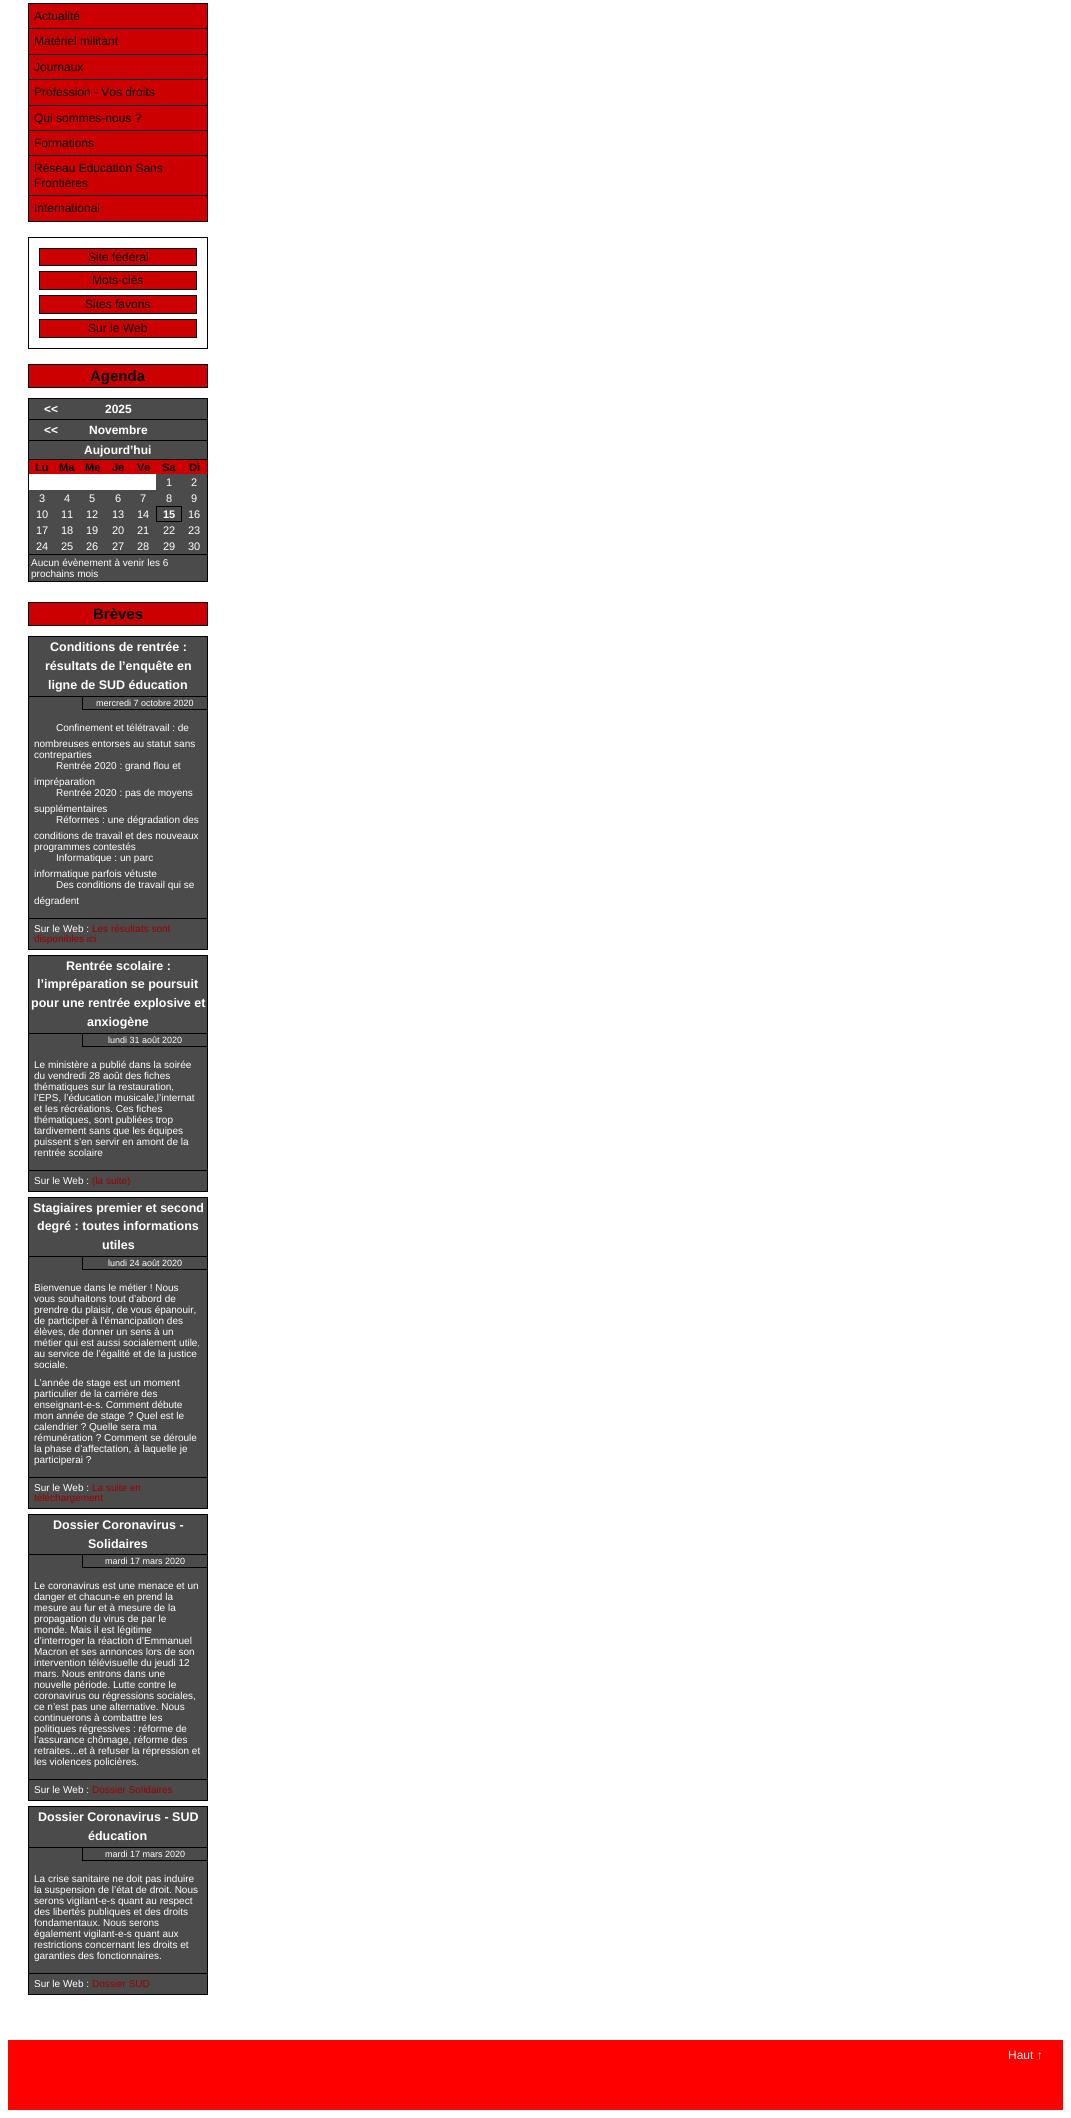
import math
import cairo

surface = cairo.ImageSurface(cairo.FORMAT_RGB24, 1071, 2118)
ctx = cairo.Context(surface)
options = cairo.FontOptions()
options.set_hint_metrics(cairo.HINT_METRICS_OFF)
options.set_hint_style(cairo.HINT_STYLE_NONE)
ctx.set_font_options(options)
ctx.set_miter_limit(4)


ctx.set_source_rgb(1, 1, 1)
ctx.paint()
ctx.set_source_rgb(0.8, 0, 0)
ctx.rectangle(29, 4, 178, 217)
ctx.fill()
ctx.set_source_rgb(0, 0, 0)
ctx.rectangle(28, 3, 180, 1)
ctx.fill()
ctx.rectangle(207, 3, 1, 219)
ctx.fill()
ctx.rectangle(28, 3, 1, 219)
ctx.fill()
ctx.rectangle(29, 28, 178, 1)
ctx.fill()
ctx.select_font_face("Liberation Sans")
ctx.set_font_size(12)
ctx.move_to(34, 20)
ctx.show_text("Actualité")
ctx.rectangle(29, 54, 178, 1)
ctx.fill()
ctx.move_to(34, 45)
ctx.show_text("Matériel militant")
ctx.rectangle(29, 79, 178, 1)
ctx.fill()
ctx.move_to(34, 71)
ctx.show_text("Journaux")
ctx.rectangle(29, 105, 178, 1)
ctx.fill()
ctx.move_to(34, 96)
ctx.show_text("Profession - Vos droits")
ctx.rectangle(29, 130, 178, 1)
ctx.fill()
ctx.move_to(34, 122)
ctx.show_text("Qui sommes-nous ?")
ctx.rectangle(29, 155, 178, 1)
ctx.fill()
ctx.move_to(34, 147)
ctx.show_text("Formations")
ctx.rectangle(29, 195, 178, 1)
ctx.fill()
ctx.move_to(34, 172)
ctx.show_text("Réseau Education Sans")
ctx.move_to(34, 187)
ctx.show_text("Frontières")
ctx.rectangle(29, 221, 178, 1)
ctx.fill()
ctx.move_to(34, 212)
ctx.show_text("International")
ctx.rectangle(28.5, 237.5, 179, 111)
ctx.set_line_width(1)
ctx.stroke()
ctx.set_source_rgb(0.8, 0, 0)
ctx.rectangle(39.5, 248.5, 157, 17)
ctx.fill_preserve()
ctx.set_source_rgb(0, 0, 0)
ctx.stroke()
ctx.move_to(88, 261)
ctx.show_text("Site fédéral")
ctx.set_source_rgb(0.8, 0, 0)
ctx.rectangle(39.5, 271.5, 157, 18)
ctx.fill_preserve()
ctx.set_source_rgb(0, 0, 0)
ctx.stroke()
ctx.move_to(92, 284)
ctx.show_text("Mots-clés")
ctx.set_source_rgb(0.8, 0, 0)
ctx.rectangle(39.5, 295.5, 157, 18)
ctx.fill_preserve()
ctx.set_source_rgb(0, 0, 0)
ctx.stroke()
ctx.move_to(85, 308)
ctx.show_text("Sites favoris")
ctx.set_source_rgb(0.8, 0, 0)
ctx.rectangle(39.5, 319.5, 157, 18)
ctx.fill_preserve()
ctx.set_source_rgb(0, 0, 0)
ctx.stroke()
ctx.move_to(88, 332)
ctx.show_text("Sur le Web")
ctx.set_source_rgb(0.8, 0, 0)
ctx.rectangle(28.5, 364.5, 179, 23)
ctx.fill_preserve()
ctx.set_source_rgb(0, 0, 0)
ctx.stroke()
ctx.select_font_face("Liberation Sans", cairo.FONT_SLANT_NORMAL, cairo.FONT_WEIGHT_BOLD)
ctx.set_font_size(15)
ctx.move_to(90, 381)
ctx.show_text("Agenda")
ctx.set_source_rgb(0.294, 0.294, 0.294)
ctx.rectangle(29, 420, 178, 161)
ctx.fill()
ctx.rectangle(28.5, 398.5, 179, 183)
ctx.set_source_rgb(0, 0, 0)
ctx.stroke()
ctx.set_source_rgb(0.294, 0.294, 0.294)
ctx.rectangle(29, 399, 178, 20)
ctx.fill()
ctx.set_source_rgb(0, 0, 0)
ctx.rectangle(29, 419, 178, 1)
ctx.fill()
ctx.set_font_size(12)
ctx.set_source_rgb(1, 1, 1)
ctx.move_to(44, 413)
ctx.show_text("<<")
ctx.move_to(105, 413)
ctx.show_text("2025")
ctx.set_source_rgb(0, 0, 0)
ctx.rectangle(29, 440, 178, 1)
ctx.fill()
ctx.set_source_rgb(1, 1, 1)
ctx.move_to(44, 434)
ctx.show_text("<<")
ctx.move_to(89, 434)
ctx.show_text("Novembre")
ctx.set_source_rgb(0, 0, 0)
ctx.rectangle(29, 459, 178, 1)
ctx.fill()
ctx.set_source_rgb(1, 1, 1)
ctx.move_to(84, 454)
ctx.show_text("Aujourd’hui")
ctx.set_source_rgb(0.8, 0, 0)
ctx.rectangle(29, 460, 178, 14)
ctx.fill()
ctx.set_font_size(11)
ctx.set_source_rgb(0, 0, 0)
ctx.move_to(35, 471)
ctx.show_text("Lu")
ctx.move_to(59, 471)
ctx.show_text("Ma")
ctx.move_to(85, 471)
ctx.show_text("Me")
ctx.move_to(112, 471)
ctx.show_text("Je")
ctx.move_to(137, 471)
ctx.show_text("Ve")
ctx.move_to(162, 471)
ctx.show_text("Sa")
ctx.move_to(189, 471)
ctx.show_text("Di")
ctx.set_source_rgb(1, 1, 1)
ctx.rectangle(29, 474, 127, 16)
ctx.fill()
ctx.select_font_face("Liberation Sans")
ctx.move_to(166, 486)
ctx.show_text("1")
ctx.move_to(191, 486)
ctx.show_text("2")
ctx.move_to(39, 502)
ctx.show_text("3")
ctx.move_to(64, 502)
ctx.show_text("4")
ctx.move_to(89, 502)
ctx.show_text("5")
ctx.move_to(115, 502)
ctx.show_text("6")
ctx.move_to(140, 502)
ctx.show_text("7")
ctx.move_to(166, 502)
ctx.show_text("8")
ctx.move_to(191, 502)
ctx.show_text("9")
ctx.move_to(36, 518)
ctx.show_text("10")
ctx.move_to(61, 518)
ctx.show_text("11")
ctx.move_to(86, 518)
ctx.show_text("12")
ctx.move_to(112, 518)
ctx.show_text("13")
ctx.move_to(137, 518)
ctx.show_text("14")
ctx.rectangle(156.5, 506.5, 25, 15)
ctx.set_source_rgb(0, 0, 0)
ctx.stroke()
ctx.select_font_face("Liberation Sans", cairo.FONT_SLANT_NORMAL, cairo.FONT_WEIGHT_BOLD)
ctx.set_source_rgb(1, 1, 1)
ctx.move_to(163, 518)
ctx.show_text("15")
ctx.select_font_face("Liberation Sans")
ctx.move_to(188, 518)
ctx.show_text("16")
ctx.move_to(36, 534)
ctx.show_text("17")
ctx.move_to(61, 534)
ctx.show_text("18")
ctx.move_to(86, 534)
ctx.show_text("19")
ctx.move_to(112, 534)
ctx.show_text("20")
ctx.move_to(137, 534)
ctx.show_text("21")
ctx.move_to(163, 534)
ctx.show_text("22")
ctx.move_to(188, 534)
ctx.show_text("23")
ctx.move_to(36, 550)
ctx.show_text("24")
ctx.move_to(61, 550)
ctx.show_text("25")
ctx.move_to(86, 550)
ctx.show_text("26")
ctx.move_to(112, 550)
ctx.show_text("27")
ctx.move_to(137, 550)
ctx.show_text("28")
ctx.move_to(163, 550)
ctx.show_text("29")
ctx.move_to(188, 550)
ctx.show_text("30")
ctx.set_source_rgb(0, 0, 0)
ctx.rectangle(29, 554, 178, 1)
ctx.fill()
ctx.set_font_size(10)
ctx.set_source_rgb(1, 1, 1)
ctx.move_to(31, 566)
ctx.show_text("Aucun évènement à venir les 6")
ctx.move_to(31, 577)
ctx.show_text("prochains mois")
ctx.set_source_rgb(0.8, 0, 0)
ctx.rectangle(28.5, 602.5, 179, 23)
ctx.fill_preserve()
ctx.set_source_rgb(0, 0, 0)
ctx.stroke()
ctx.select_font_face("Liberation Sans", cairo.FONT_SLANT_NORMAL, cairo.FONT_WEIGHT_BOLD)
ctx.set_font_size(15)
ctx.move_to(93, 619)
ctx.show_text("Brèves")
ctx.set_source_rgb(0.294, 0.294, 0.294)
ctx.rectangle(28.5, 636.5, 179, 313)
ctx.fill_preserve()
ctx.set_source_rgb(0, 0, 0)
ctx.stroke()
ctx.rectangle(29, 696, 178, 1)
ctx.fill()
ctx.set_font_size(12.5)
ctx.set_source_rgb(1, 1, 1)
ctx.move_to(50, 651)
ctx.show_text("Conditions de rentrée :")
ctx.move_to(45, 670)
ctx.show_text("résultats de l’enquête en")
ctx.move_to(48, 689)
ctx.show_text("ligne de SUD éducation")
ctx.set_source_rgb(0, 0, 0)
ctx.rectangle(82, 709, 125, 1)
ctx.fill()
ctx.rectangle(82, 697, 1, 13)
ctx.fill()
ctx.select_font_face("Liberation Sans")
ctx.set_font_size(9)
ctx.set_source_rgb(1, 1, 1)
ctx.move_to(96, 706)
ctx.show_text("mercredi 7 octobre 2020")
ctx.set_font_size(10)
ctx.move_to(56, 731)
ctx.show_text("Confinement et télétravail : de")
ctx.move_to(34, 747)
ctx.show_text("nombreuses entorses au statut sans")
ctx.move_to(34, 758)
ctx.show_text("contreparties")
ctx.move_to(56, 769)
ctx.show_text("Rentrée 2020 : grand flou et")
ctx.move_to(34, 785)
ctx.show_text("impréparation")
ctx.move_to(56, 796)
ctx.show_text("Rentrée 2020 : pas de moyens")
ctx.move_to(34, 812)
ctx.show_text("supplémentaires")
ctx.move_to(56, 823)
ctx.show_text("Réformes : une dégradation des")
ctx.move_to(34, 839)
ctx.show_text("conditions de travail et des nouveaux")
ctx.move_to(34, 850)
ctx.show_text("programmes contestés")
ctx.move_to(56, 861)
ctx.show_text("Informatique : un parc")
ctx.move_to(34, 877)
ctx.show_text("informatique parfois vétuste")
ctx.move_to(56, 888)
ctx.show_text("Des conditions de travail qui se")
ctx.move_to(34, 904)
ctx.show_text("dégradent")
ctx.set_source_rgb(0, 0, 0)
ctx.rectangle(29, 918, 178, 1)
ctx.fill()
ctx.set_source_rgb(1, 1, 1)
ctx.move_to(34, 932)
ctx.show_text("Sur le Web :")
ctx.set_source_rgb(0.6, 0, 0)
ctx.move_to(92, 932)
ctx.show_text("Les résultats sont")
ctx.move_to(34, 942)
ctx.show_text("disponibles ici")
ctx.set_source_rgb(0.294, 0.294, 0.294)
ctx.rectangle(28.5, 955.5, 179, 236)
ctx.fill_preserve()
ctx.set_source_rgb(0, 0, 0)
ctx.stroke()
ctx.rectangle(29, 1033, 178, 1)
ctx.fill()
ctx.select_font_face("Liberation Sans", cairo.FONT_SLANT_NORMAL, cairo.FONT_WEIGHT_BOLD)
ctx.set_font_size(12.5)
ctx.set_source_rgb(1, 1, 1)
ctx.move_to(66, 970)
ctx.show_text("Rentrée scolaire :")
ctx.move_to(37, 988)
ctx.show_text("l’impréparation se poursuit")
ctx.move_to(31, 1007)
ctx.show_text("pour une rentrée explosive et")
ctx.move_to(87, 1026)
ctx.show_text("anxiogène")
ctx.set_source_rgb(0, 0, 0)
ctx.rectangle(82, 1046, 125, 1)
ctx.fill()
ctx.rectangle(82, 1034, 1, 13)
ctx.fill()
ctx.select_font_face("Liberation Sans")
ctx.set_font_size(9)
ctx.set_source_rgb(1, 1, 1)
ctx.move_to(108, 1043)
ctx.show_text("lundi 31 août 2020")
ctx.set_font_size(10)
ctx.move_to(34, 1068)
ctx.show_text("Le ministère a publié dans la soirée")
ctx.move_to(34, 1079)
ctx.show_text("du vendredi 28 août des fiches")
ctx.move_to(34, 1090)
ctx.show_text("thématiques sur la restauration,")
ctx.move_to(34, 1101)
ctx.show_text("l’EPS, l’éducation musicale,l’internat")
ctx.move_to(34, 1112)
ctx.show_text("et les récréations. Ces fiches")
ctx.move_to(34, 1123)
ctx.show_text("thématiques, sont publiées trop")
ctx.move_to(34, 1134)
ctx.show_text("tardivement sans que les équipes")
ctx.move_to(34, 1145)
ctx.show_text("puissent s’en servir en amont de la")
ctx.move_to(34, 1156)
ctx.show_text("rentrée scolaire")
ctx.set_source_rgb(0, 0, 0)
ctx.rectangle(29, 1170, 178, 1)
ctx.fill()
ctx.set_source_rgb(1, 1, 1)
ctx.move_to(34, 1184)
ctx.show_text("Sur le Web :")
ctx.set_source_rgb(0.6, 0, 0)
ctx.move_to(92, 1184)
ctx.show_text("(la suite)")
ctx.set_source_rgb(0.294, 0.294, 0.294)
ctx.rectangle(28.5, 1197.5, 179, 311)
ctx.fill_preserve()
ctx.set_source_rgb(0, 0, 0)
ctx.stroke()
ctx.rectangle(29, 1256, 178, 1)
ctx.fill()
ctx.select_font_face("Liberation Sans", cairo.FONT_SLANT_NORMAL, cairo.FONT_WEIGHT_BOLD)
ctx.set_font_size(12.5)
ctx.set_source_rgb(1, 1, 1)
ctx.move_to(33, 1212)
ctx.show_text("Stagiaires premier et second")
ctx.move_to(37, 1230)
ctx.show_text("degré : toutes informations")
ctx.move_to(102, 1249)
ctx.show_text("utiles")
ctx.set_source_rgb(0, 0, 0)
ctx.rectangle(82, 1269, 125, 1)
ctx.fill()
ctx.rectangle(82, 1257, 1, 13)
ctx.fill()
ctx.select_font_face("Liberation Sans")
ctx.set_font_size(9)
ctx.set_source_rgb(1, 1, 1)
ctx.move_to(108, 1266)
ctx.show_text("lundi 24 août 2020")
ctx.set_font_size(10)
ctx.move_to(34, 1291)
ctx.show_text("Bienvenue dans le métier ! Nous")
ctx.move_to(34, 1302)
ctx.show_text("vous souhaitons tout d’abord de")
ctx.move_to(34, 1313)
ctx.show_text("prendre du plaisir, de vous épanouir,")
ctx.move_to(34, 1324)
ctx.show_text("de participer à l’émancipation des")
ctx.move_to(34, 1335)
ctx.show_text("élèves, de donner un sens à un")
ctx.move_to(34, 1346)
ctx.show_text("métier qui est aussi socialement utile,")
ctx.move_to(34, 1357)
ctx.show_text("au service de l’égalité et de la justice")
ctx.move_to(34, 1368)
ctx.show_text("sociale.")
ctx.move_to(34, 1386)
ctx.show_text("L’année de stage est un moment")
ctx.move_to(34, 1397)
ctx.show_text("particulier de la carrière des")
ctx.move_to(34, 1408)
ctx.show_text("enseignant-e-s. Comment débute")
ctx.move_to(34, 1419)
ctx.show_text("mon année de stage ? Quel est le")
ctx.move_to(34, 1430)
ctx.show_text("calendrier ? Quelle sera ma")
ctx.move_to(34, 1441)
ctx.show_text("rémunération ? Comment se déroule")
ctx.move_to(34, 1452)
ctx.show_text("la phase d’affectation, à laquelle je")
ctx.move_to(34, 1463)
ctx.show_text("participerai ?")
ctx.set_source_rgb(0, 0, 0)
ctx.rectangle(29, 1477, 178, 1)
ctx.fill()
ctx.set_source_rgb(1, 1, 1)
ctx.move_to(34, 1491)
ctx.show_text("Sur le Web :")
ctx.set_source_rgb(0.6, 0, 0)
ctx.move_to(92, 1491)
ctx.show_text("La suite en")
ctx.move_to(34, 1501)
ctx.show_text("téléchargement")
ctx.set_source_rgb(0.294, 0.294, 0.294)
ctx.rectangle(28.5, 1514.5, 179, 286)
ctx.fill_preserve()
ctx.set_source_rgb(0, 0, 0)
ctx.stroke()
ctx.rectangle(29, 1554, 178, 1)
ctx.fill()
ctx.select_font_face("Liberation Sans", cairo.FONT_SLANT_NORMAL, cairo.FONT_WEIGHT_BOLD)
ctx.set_font_size(12.5)
ctx.set_source_rgb(1, 1, 1)
ctx.move_to(53, 1529)
ctx.show_text("Dossier Coronavirus -")
ctx.move_to(88, 1548)
ctx.show_text("Solidaires")
ctx.set_source_rgb(0, 0, 0)
ctx.rectangle(82, 1567, 125, 1)
ctx.fill()
ctx.rectangle(82, 1555, 1, 13)
ctx.fill()
ctx.select_font_face("Liberation Sans")
ctx.set_font_size(9)
ctx.set_source_rgb(1, 1, 1)
ctx.move_to(105, 1564)
ctx.show_text("mardi 17 mars 2020")
ctx.set_font_size(10)
ctx.move_to(34, 1589)
ctx.show_text("Le coronavirus est une menace et un")
ctx.move_to(34, 1600)
ctx.show_text("danger et chacun-e en prend la")
ctx.move_to(34, 1611)
ctx.show_text("mesure au fur et à mesure de la")
ctx.move_to(34, 1622)
ctx.show_text("propagation du virus de par le")
ctx.move_to(34, 1633)
ctx.show_text("monde. Mais il est légitime")
ctx.move_to(34, 1644)
ctx.show_text("d’interroger la réaction d’Emmanuel")
ctx.move_to(34, 1655)
ctx.show_text("Macron et ses annonces lors de son")
ctx.move_to(34, 1666)
ctx.show_text("intervention télévisuelle du jeudi 12")
ctx.move_to(34, 1677)
ctx.show_text("mars. Nous entrons dans une")
ctx.move_to(34, 1688)
ctx.show_text("nouvelle période. Lutte contre le")
ctx.move_to(34, 1699)
ctx.show_text("coronavirus ou régressions sociales,")
ctx.move_to(34, 1710)
ctx.show_text("ce n’est pas une alternative. Nous")
ctx.move_to(34, 1721)
ctx.show_text("continuerons à combattre les")
ctx.move_to(34, 1732)
ctx.show_text("politiques régressives : réforme de")
ctx.move_to(34, 1743)
ctx.show_text("l’assurance chômage, réforme des")
ctx.move_to(34, 1754)
ctx.show_text("retraites...et à refuser la répression et")
ctx.move_to(34, 1765)
ctx.show_text("les violences policières.")
ctx.set_source_rgb(0, 0, 0)
ctx.rectangle(29, 1779, 178, 1)
ctx.fill()
ctx.set_source_rgb(1, 1, 1)
ctx.move_to(34, 1793)
ctx.show_text("Sur le Web :")
ctx.set_source_rgb(0.6, 0, 0)
ctx.move_to(92, 1793)
ctx.show_text("Dossier Solidaires")
ctx.set_source_rgb(0.294, 0.294, 0.294)
ctx.rectangle(28.5, 1806.5, 179, 188)
ctx.fill_preserve()
ctx.set_source_rgb(0, 0, 0)
ctx.stroke()
ctx.rectangle(29, 1847, 178, 1)
ctx.fill()
ctx.select_font_face("Liberation Sans", cairo.FONT_SLANT_NORMAL, cairo.FONT_WEIGHT_BOLD)
ctx.set_font_size(12.5)
ctx.set_source_rgb(1, 1, 1)
ctx.move_to(38, 1821)
ctx.show_text("Dossier Coronavirus - SUD")
ctx.move_to(88, 1840)
ctx.show_text("éducation")
ctx.set_source_rgb(0, 0, 0)
ctx.rectangle(82, 1860, 125, 1)
ctx.fill()
ctx.rectangle(82, 1848, 1, 13)
ctx.fill()
ctx.select_font_face("Liberation Sans")
ctx.set_font_size(9)
ctx.set_source_rgb(1, 1, 1)
ctx.move_to(105, 1857)
ctx.show_text("mardi 17 mars 2020")
ctx.set_font_size(10)
ctx.move_to(34, 1882)
ctx.show_text("La crise sanitaire ne doit pas induire")
ctx.move_to(34, 1893)
ctx.show_text("la suspension de l’état de droit. Nous")
ctx.move_to(34, 1904)
ctx.show_text("serons vigilant-e-s quant au respect")
ctx.move_to(34, 1915)
ctx.show_text("des libertés publiques et des droits")
ctx.move_to(34, 1926)
ctx.show_text("fondamentaux. Nous serons")
ctx.move_to(34, 1937)
ctx.show_text("également vigilant-e-s quant aux")
ctx.move_to(34, 1948)
ctx.show_text("restrictions concernant les droits et")
ctx.move_to(34, 1959)
ctx.show_text("garanties des fonctionnaires.")
ctx.set_source_rgb(0, 0, 0)
ctx.rectangle(29, 1973, 178, 1)
ctx.fill()
ctx.set_source_rgb(1, 1, 1)
ctx.move_to(34, 1987)
ctx.show_text("Sur le Web :")
ctx.set_source_rgb(0.6, 0, 0)
ctx.move_to(92, 1987)
ctx.show_text("Dossier SUD")
ctx.set_source_rgb(1, 0, 0)
ctx.rectangle(8, 2040, 1055, 70)
ctx.fill()
ctx.set_font_size(12)
ctx.set_source_rgb(0.933, 0.933, 0.933)
ctx.move_to(1008, 2059)
ctx.show_text("Haut ↑")
surface.write_to_png("page.png")
